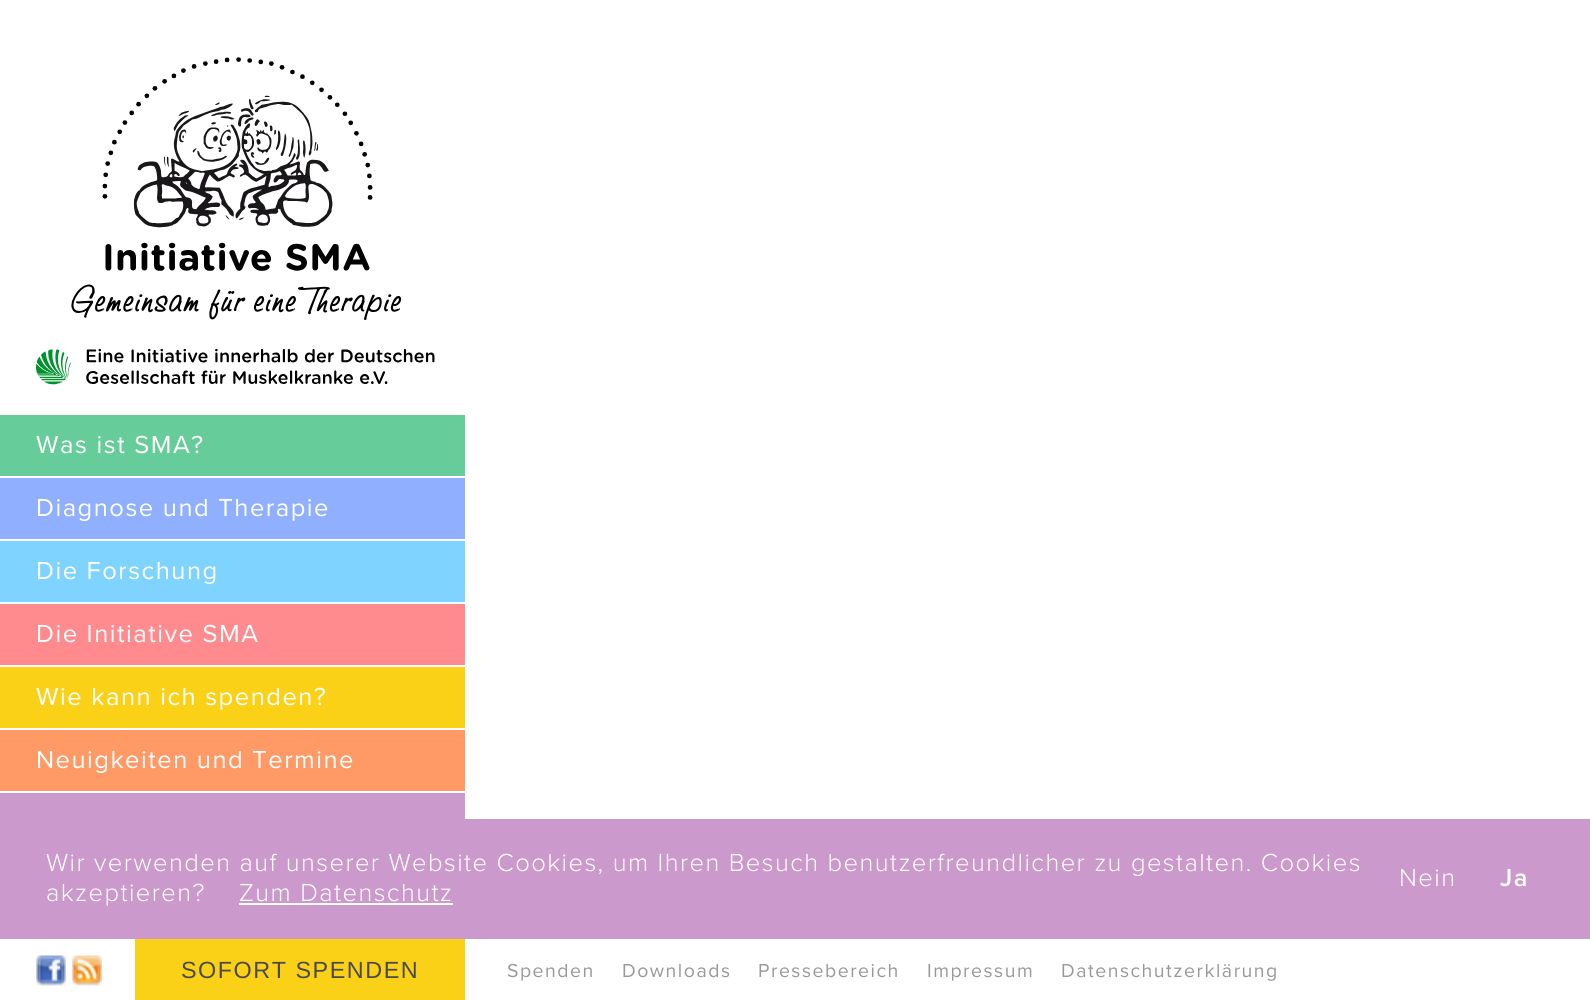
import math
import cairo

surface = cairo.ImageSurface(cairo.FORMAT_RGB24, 1590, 1000)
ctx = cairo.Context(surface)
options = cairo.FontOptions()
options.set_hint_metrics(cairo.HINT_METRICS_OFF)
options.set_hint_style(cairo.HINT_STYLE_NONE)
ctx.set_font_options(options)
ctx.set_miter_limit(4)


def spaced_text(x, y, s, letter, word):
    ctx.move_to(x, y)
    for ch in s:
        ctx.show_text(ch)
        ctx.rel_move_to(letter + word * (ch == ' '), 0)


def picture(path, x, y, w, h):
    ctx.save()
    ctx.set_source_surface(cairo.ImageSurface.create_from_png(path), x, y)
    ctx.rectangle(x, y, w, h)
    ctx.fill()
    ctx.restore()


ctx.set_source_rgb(1, 1, 1)
ctx.paint()
picture("img1.png", 71, 57, 331, 263)
picture("img2.png", 36, 349, 399, 36)
ctx.set_source_rgb(0.4, 0.8, 0.6)
ctx.rectangle(0, 415, 465, 61)
ctx.fill()
ctx.select_font_face("Proxima Nova")
ctx.set_font_size(25.55)
ctx.set_source_rgb(1, 1, 1)
spaced_text(36, 453, "Was ist SMA?", 1.5, 0)
ctx.set_source_rgb(0.565, 0.69, 1)
ctx.rectangle(0, 478, 465, 61)
ctx.fill()
ctx.set_source_rgb(1, 1, 1)
spaced_text(36, 516, "Diagnose und Therapie", 1.5, 0)
ctx.set_source_rgb(0.498, 0.831, 1)
ctx.rectangle(0, 541, 465, 61)
ctx.fill()
ctx.set_source_rgb(1, 1, 1)
spaced_text(36, 579, "Die Forschung", 1.5, 0)
ctx.set_source_rgb(1, 0.545, 0.557)
ctx.rectangle(0, 604, 465, 61)
ctx.fill()
ctx.set_source_rgb(1, 1, 1)
spaced_text(36, 642, "Die Initiative SMA", 1.5, 0)
ctx.set_source_rgb(0.984, 0.82, 0.094)
ctx.rectangle(0, 667, 465, 61)
ctx.fill()
ctx.set_source_rgb(1, 1, 1)
spaced_text(36, 705, "Wie kann ich spenden?", 1.5, 0)
ctx.set_source_rgb(1, 0.6, 0.4)
ctx.rectangle(0, 730, 465, 61)
ctx.fill()
ctx.set_source_rgb(1, 1, 1)
spaced_text(36, 768, "Neuigkeiten und Termine", 1.5, 0)
ctx.set_source_rgb(0.8, 0.6, 0.8)
ctx.rectangle(0, 793, 465, 26)
ctx.fill()
ctx.rectangle(0, 819, 1590, 120)
ctx.fill()
ctx.select_font_face("Proxima Nova Light")
ctx.set_source_rgb(1, 1, 1)
spaced_text(46, 871, "Wir verwenden auf unserer Website Cookies, um Ihren Besuch benutzerfreundlicher zu gestalten. Cookies", 1.44, 0)
spaced_text(46, 901, "akzeptieren?", 1.44, 0)
spaced_text(239, 901, "Zum Datenschutz", 1.44, 0)
ctx.rectangle(239, 903, 214, 2)
ctx.fill()
spaced_text(1399, 886, "Nein", 1.44, 0)
ctx.select_font_face("Proxima Nova SemiBold")
spaced_text(1500, 886, "Ja", 1.44, 0)
picture("img3.png", 36, 955, 30, 31)
picture("img4.png", 72, 955, 30, 31)
ctx.set_source_rgb(0.984, 0.82, 0.094)
ctx.rectangle(135, 939, 330, 61)
ctx.fill()
ctx.select_font_face("Liberation Sans")
ctx.set_font_size(23.4)
ctx.set_source_rgb(0.29, 0.29, 0.29)
spaced_text(181, 978, "SOFORT SPENDEN", 1.5, 0)
ctx.select_font_face("Proxima Nova")
ctx.set_font_size(19.5)
ctx.set_source_rgb(0.6, 0.6, 0.6)
spaced_text(507, 977, "Spenden", 1.5, 0)
spaced_text(622, 977, "Downloads", 1.5, 0)
spaced_text(758, 977, "Pressebereich", 1.5, 0)
spaced_text(927, 977, "Impressum", 1.5, 0)
spaced_text(1061, 977, "Datenschutzerklärung", 1.5, 0)
surface.write_to_png("page.png")
